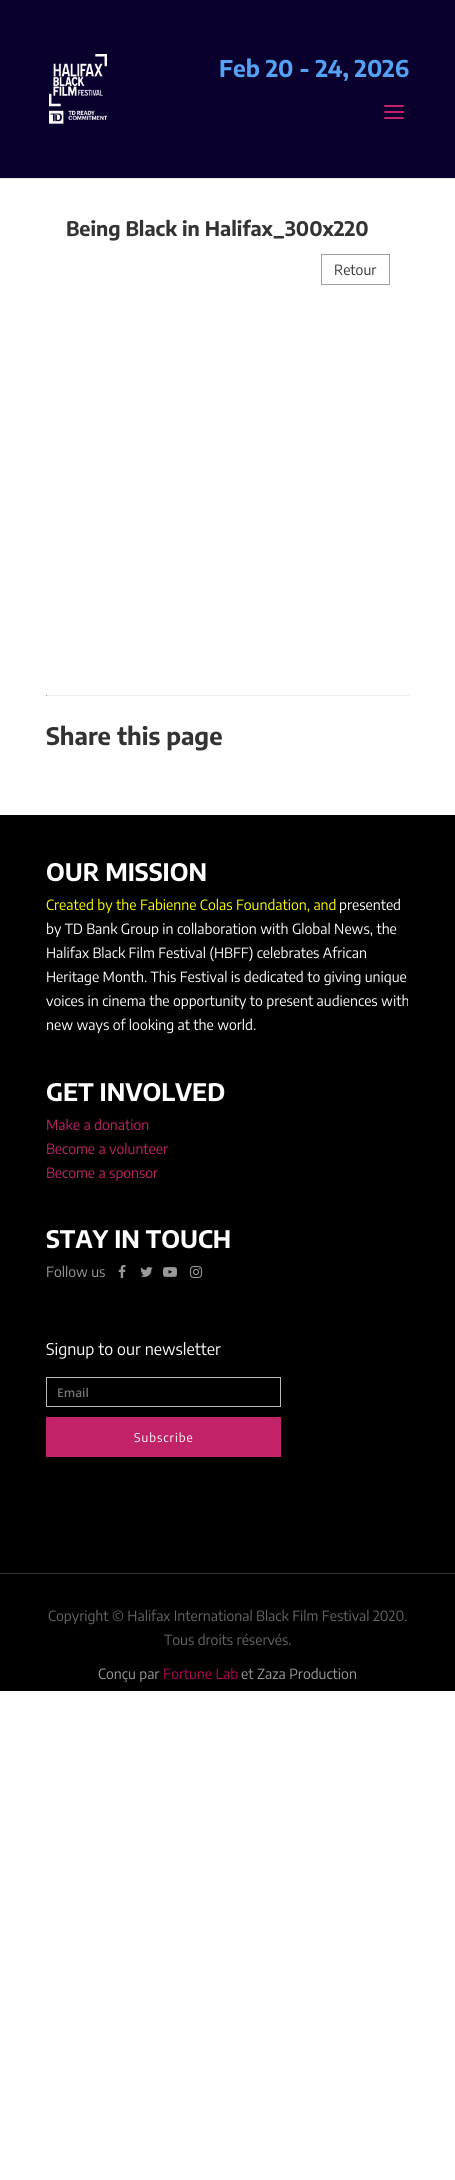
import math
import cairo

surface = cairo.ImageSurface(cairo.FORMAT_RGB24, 455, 2180)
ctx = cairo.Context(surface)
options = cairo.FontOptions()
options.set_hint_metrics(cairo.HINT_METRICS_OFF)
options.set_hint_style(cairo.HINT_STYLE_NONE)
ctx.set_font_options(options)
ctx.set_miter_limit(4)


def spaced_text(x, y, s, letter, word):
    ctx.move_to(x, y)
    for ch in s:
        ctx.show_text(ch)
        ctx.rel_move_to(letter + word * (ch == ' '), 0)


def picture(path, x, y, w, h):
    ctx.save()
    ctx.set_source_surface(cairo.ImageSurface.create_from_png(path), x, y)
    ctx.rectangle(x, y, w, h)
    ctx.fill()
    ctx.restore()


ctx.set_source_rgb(1, 1, 1)
ctx.paint()
ctx.set_source_rgb(0.902, 0.902, 0.902)
ctx.rectangle(0, 178, 455, 1)
ctx.fill()
ctx.set_source_rgb(0.039, 0, 0.18)
ctx.rectangle(0, 0, 455, 178)
ctx.fill()
picture("img1.png", 49, 54, 58, 70)
ctx.select_font_face("Encode Sans Condensed", cairo.FONT_SLANT_NORMAL, cairo.FONT_WEIGHT_BOLD)
ctx.set_font_size(23)
ctx.set_source_rgb(0.325, 0.635, 0.953)
ctx.move_to(219, 77)
ctx.show_text("Feb 20 - 24, 2026")
picture("img2.png", 384, 105, 20, 14)
ctx.set_font_size(20)
ctx.set_source_rgb(0.2, 0.2, 0.2)
ctx.move_to(66, 236)
ctx.show_text("Being Black in Halifax_300x220")
ctx.rectangle(321.5, 254.5, 68, 30)
ctx.set_source_rgb(0.624, 0.624, 0.624)
ctx.set_line_width(1)
ctx.stroke()
ctx.select_font_face("Encode Sans Condensed")
ctx.set_font_size(14)
ctx.set_source_rgb(0.2, 0.2, 0.2)
ctx.move_to(334, 275)
ctx.show_text("Retour")
ctx.set_source_rgb(0.933, 0.933, 0.933)
ctx.rectangle(46, 695, 364, 1)
ctx.fill()
ctx.set_source_rgb(0.624, 0.624, 0.624)
ctx.rectangle(46, 695, 1, 1)
ctx.fill()
ctx.select_font_face("Encode Sans Condensed", cairo.FONT_SLANT_NORMAL, cairo.FONT_WEIGHT_BOLD)
ctx.set_font_size(24)
ctx.set_source_rgb(0.2, 0.2, 0.2)
ctx.move_to(46, 745)
ctx.show_text("Share this page")
ctx.set_source_rgb(0, 0, 0)
ctx.rectangle(0, 815, 455, 876)
ctx.fill()
ctx.set_source_rgb(1, 1, 1)
ctx.move_to(46, 881)
ctx.show_text("OUR MISSION")
ctx.select_font_face("Encode Sans Condensed")
ctx.set_font_size(14)
ctx.set_source_rgb(1, 1, 0)
ctx.move_to(46, 910)
ctx.show_text("Created by the Fabienne Colas Foundation, and")
ctx.set_source_rgb(1, 1, 1)
ctx.move_to(339, 910)
ctx.show_text("presented")
ctx.move_to(46, 934)
ctx.show_text("by TD Bank Group in collaboration with Global News, the")
ctx.move_to(46, 958)
ctx.show_text("Halifax Black Film Festival (HBFF) celebrates African")
ctx.move_to(46, 982)
ctx.show_text("Heritage Month. This Festival is dedicated to giving unique")
ctx.move_to(46, 1006)
ctx.show_text("voices in cinema the opportunity to present audiences with")
ctx.move_to(46, 1030)
ctx.show_text("new ways of looking at the world.")
ctx.select_font_face("Encode Sans Condensed", cairo.FONT_SLANT_NORMAL, cairo.FONT_WEIGHT_BOLD)
ctx.set_font_size(24)
ctx.move_to(46, 1101)
ctx.show_text("GET INVOLVED")
ctx.select_font_face("Encode Sans Condensed")
ctx.set_font_size(14)
ctx.set_source_rgb(0.761, 0.133, 0.408)
ctx.move_to(46, 1130)
ctx.show_text("Make a donation")
ctx.move_to(46, 1154)
ctx.show_text("Become a volunteer")
ctx.move_to(46, 1178)
ctx.show_text("Become a sponsor")
ctx.select_font_face("Encode Sans Condensed", cairo.FONT_SLANT_NORMAL, cairo.FONT_WEIGHT_BOLD)
ctx.set_font_size(24)
ctx.set_source_rgb(1, 1, 1)
ctx.move_to(46, 1248)
ctx.show_text("STAY IN TOUCH")
ctx.select_font_face("Encode Sans Condensed")
ctx.set_font_size(14)
ctx.set_source_rgb(0.6, 0.6, 0.6)
ctx.move_to(46, 1277)
ctx.show_text("Follow us")
picture("img3.png", 118, 1265, 8, 13)
picture("img4.png", 140, 1267, 13, 10)
picture("img5.png", 163, 1267, 14, 10)
picture("img6.png", 190, 1266, 12, 12)
ctx.set_font_size(16)
ctx.set_source_rgb(1, 1, 1)
ctx.move_to(46, 1355)
ctx.show_text("Signup to our newsletter")
ctx.rectangle(46.5, 1377.5, 234, 29)
ctx.set_source_rgb(0.733, 0.733, 0.733)
ctx.stroke()
ctx.select_font_face("Open Sans SemiBold")
ctx.set_font_size(12)
ctx.set_source_rgb(0.459, 0.459, 0.459)
ctx.move_to(57, 1397)
ctx.show_text("Email")
ctx.set_source_rgb(0.761, 0.133, 0.408)
ctx.rectangle(46, 1417, 235, 40)
ctx.fill()
ctx.select_font_face("Encode Sans Condensed")
ctx.set_source_rgb(1, 1, 1)
spaced_text(134, 1442, "Subscribe", 1, 0)
ctx.set_source_rgb(0.2, 0.2, 0.2)
ctx.rectangle(0, 1573, 455, 1)
ctx.fill()
ctx.set_font_size(14)
ctx.set_source_rgb(0.4, 0.4, 0.4)
ctx.move_to(48, 1621)
ctx.show_text("Copyright © Halifax International Black Film Festival 2020.")
ctx.move_to(164, 1645)
ctx.show_text("Tous droits réservés.")
ctx.set_source_rgb(0.6, 0.6, 0.6)
ctx.move_to(98, 1679)
ctx.show_text("Conçu par")
ctx.set_source_rgb(0.698, 0.02, 0.333)
ctx.move_to(163, 1679)
ctx.show_text("Fortune Lab")
ctx.set_source_rgb(0.6, 0.6, 0.6)
ctx.move_to(241, 1679)
ctx.show_text("et Zaza Production")
surface.write_to_png("page.png")
